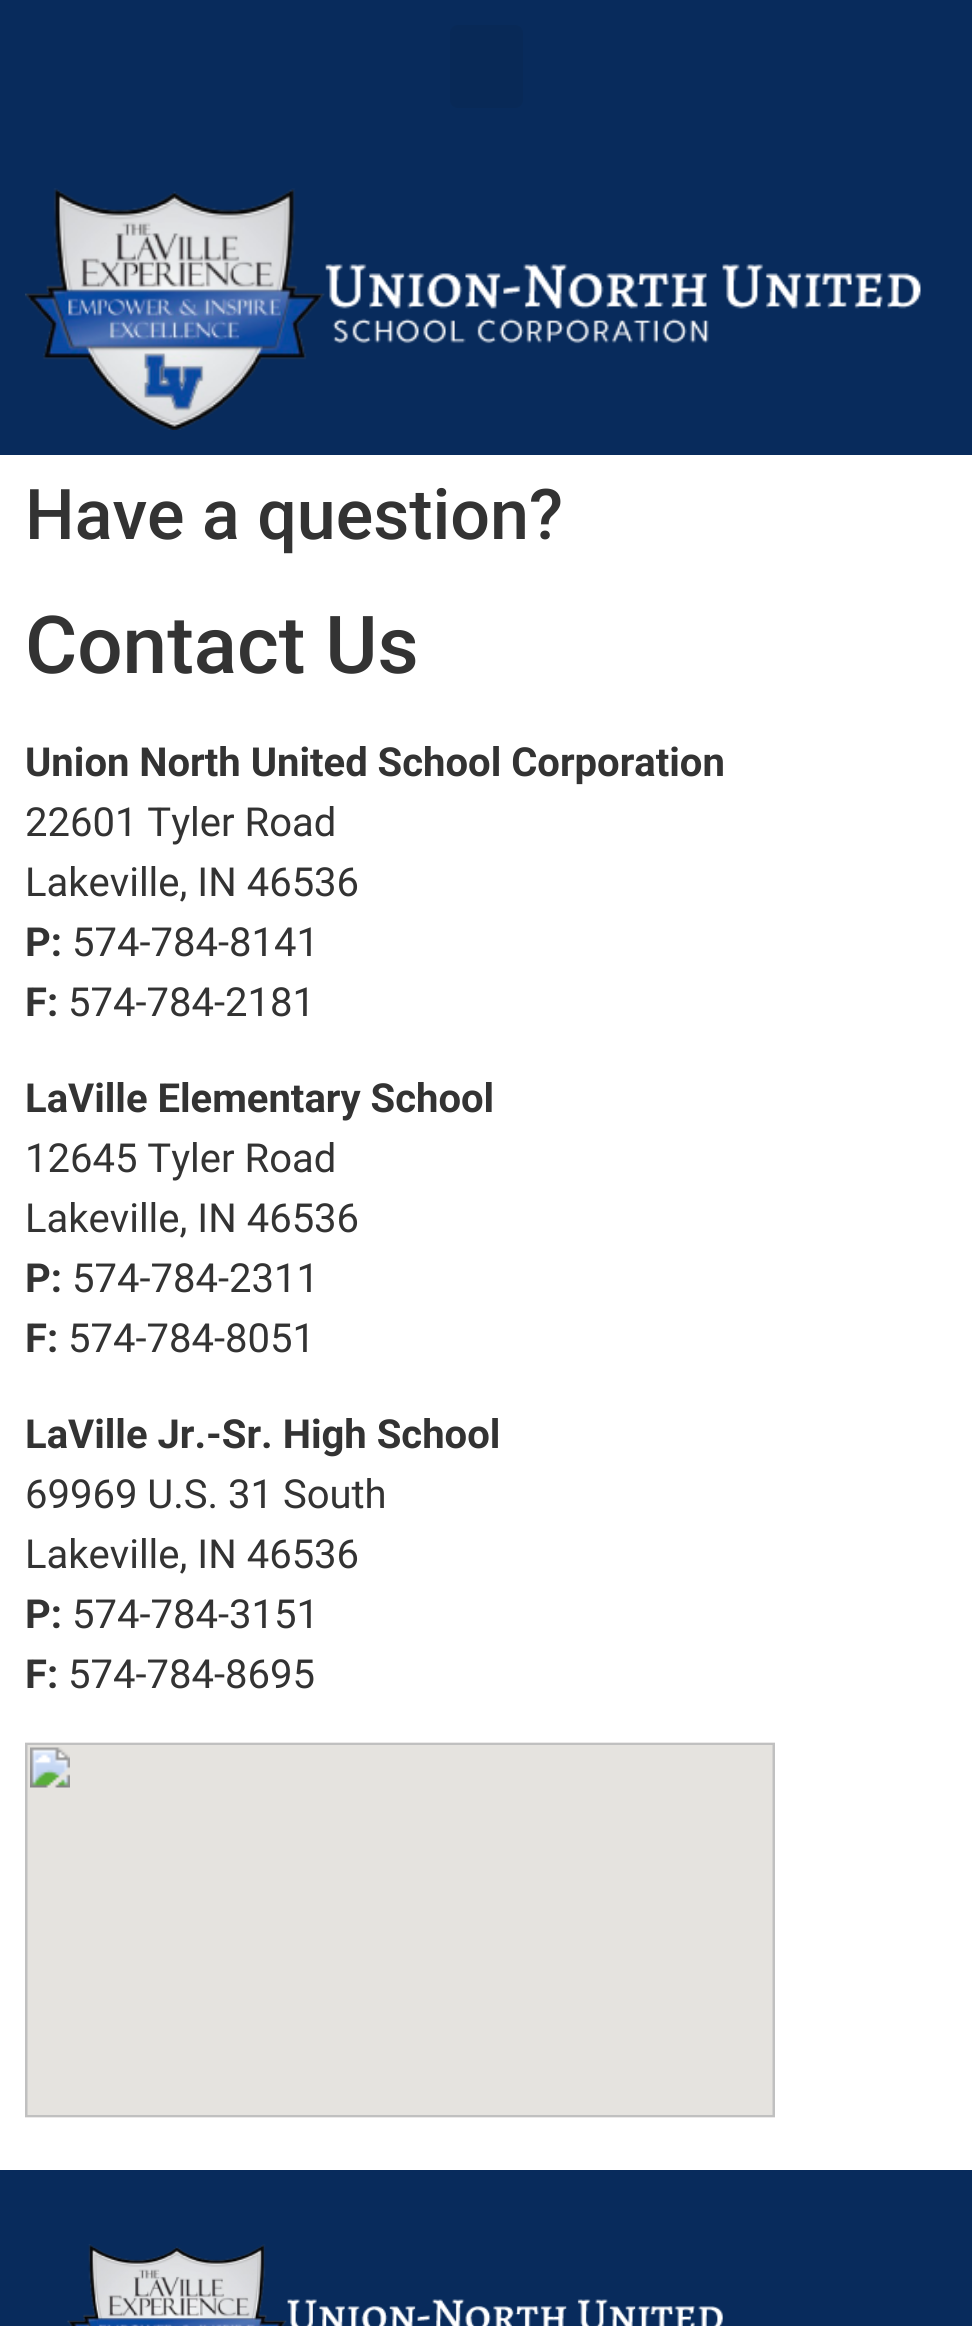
import math
import cairo

surface = cairo.ImageSurface(cairo.FORMAT_RGB24, 972, 2326)
ctx = cairo.Context(surface)
options = cairo.FontOptions()
options.set_hint_metrics(cairo.HINT_METRICS_OFF)
options.set_hint_style(cairo.HINT_STYLE_NONE)
ctx.set_font_options(options)
ctx.set_miter_limit(4)


def round_rect(x, y, w, h, r):
    ctx.new_sub_path()
    for i, (u, v) in enumerate([(x + w - r, y + h - r), (x + r, y + h - r), (x + r, y + r), (x + w - r, y + r)]):
        ctx.arc(u, v, r, i * math.pi / 2, (i + 1) * math.pi / 2)
    ctx.close_path()


def picture(path, x, y, w, h):
    ctx.save()
    ctx.set_source_surface(cairo.ImageSurface.create_from_png(path), x, y)
    ctx.rectangle(x, y, w, h)
    ctx.fill()
    ctx.restore()


ctx.set_source_rgb(1, 1, 1)
ctx.paint()
ctx.set_source_rgb(0.035, 0.169, 0.361)
ctx.rectangle(0, 0, 972, 455)
ctx.fill()
ctx.set_source_rgb(0.035, 0.161, 0.341)
round_rect(450, 25, 73, 83, 8)
ctx.fill()
picture("img1.png", 25, 188, 896, 242)
ctx.select_font_face("Roboto Medium")
ctx.set_font_size(70)
ctx.set_source_rgb(0.2, 0.2, 0.2)
ctx.move_to(25, 539)
ctx.show_text("Have a question?")
ctx.set_font_size(80)
ctx.move_to(25, 673)
ctx.show_text("Contact Us")
ctx.select_font_face("Roboto", cairo.FONT_SLANT_NORMAL, cairo.FONT_WEIGHT_BOLD)
ctx.set_font_size(40)
ctx.move_to(25, 776)
ctx.show_text("Union North United School Corporation")
ctx.select_font_face("Roboto")
ctx.move_to(25, 836)
ctx.show_text("22601 Tyler Road")
ctx.move_to(25, 896)
ctx.show_text("Lakeville, IN 46536")
ctx.select_font_face("Roboto", cairo.FONT_SLANT_NORMAL, cairo.FONT_WEIGHT_BOLD)
ctx.move_to(25, 956)
ctx.show_text("P:")
ctx.select_font_face("Roboto")
ctx.move_to(72, 956)
ctx.show_text("574-784-8141")
ctx.select_font_face("Roboto", cairo.FONT_SLANT_NORMAL, cairo.FONT_WEIGHT_BOLD)
ctx.move_to(25, 1016)
ctx.show_text("F:")
ctx.select_font_face("Roboto")
ctx.move_to(68, 1016)
ctx.show_text("574-784-2181")
ctx.select_font_face("Roboto", cairo.FONT_SLANT_NORMAL, cairo.FONT_WEIGHT_BOLD)
ctx.move_to(25, 1112)
ctx.show_text("LaVille Elementary School")
ctx.select_font_face("Roboto")
ctx.move_to(25, 1172)
ctx.show_text("12645 Tyler Road")
ctx.move_to(25, 1232)
ctx.show_text("Lakeville, IN 46536")
ctx.select_font_face("Roboto", cairo.FONT_SLANT_NORMAL, cairo.FONT_WEIGHT_BOLD)
ctx.move_to(25, 1292)
ctx.show_text("P:")
ctx.select_font_face("Roboto")
ctx.move_to(72, 1292)
ctx.show_text("574-784-2311")
ctx.select_font_face("Roboto", cairo.FONT_SLANT_NORMAL, cairo.FONT_WEIGHT_BOLD)
ctx.move_to(25, 1352)
ctx.show_text("F:")
ctx.select_font_face("Roboto")
ctx.move_to(68, 1352)
ctx.show_text("574-784-8051")
ctx.select_font_face("Roboto", cairo.FONT_SLANT_NORMAL, cairo.FONT_WEIGHT_BOLD)
ctx.move_to(25, 1448)
ctx.show_text("LaVille Jr.-Sr. High School")
ctx.select_font_face("Roboto")
ctx.move_to(25, 1508)
ctx.show_text("69969 U.S. 31 South")
ctx.move_to(25, 1568)
ctx.show_text("Lakeville, IN 46536")
ctx.select_font_face("Roboto", cairo.FONT_SLANT_NORMAL, cairo.FONT_WEIGHT_BOLD)
ctx.move_to(25, 1628)
ctx.show_text("P:")
ctx.select_font_face("Roboto")
ctx.move_to(72, 1628)
ctx.show_text("574-784-3151")
ctx.select_font_face("Roboto", cairo.FONT_SLANT_NORMAL, cairo.FONT_WEIGHT_BOLD)
ctx.move_to(25, 1688)
ctx.show_text("F:")
ctx.select_font_face("Roboto")
ctx.move_to(68, 1688)
ctx.show_text("574-784-8695")
picture("img2.png", 25, 1742, 750, 376)
ctx.set_source_rgb(0.035, 0.169, 0.361)
ctx.rectangle(0, 2170, 972, 156)
ctx.fill()
picture("img3.png", 67, 2244, 656, 82)
surface.write_to_png("page.png")
